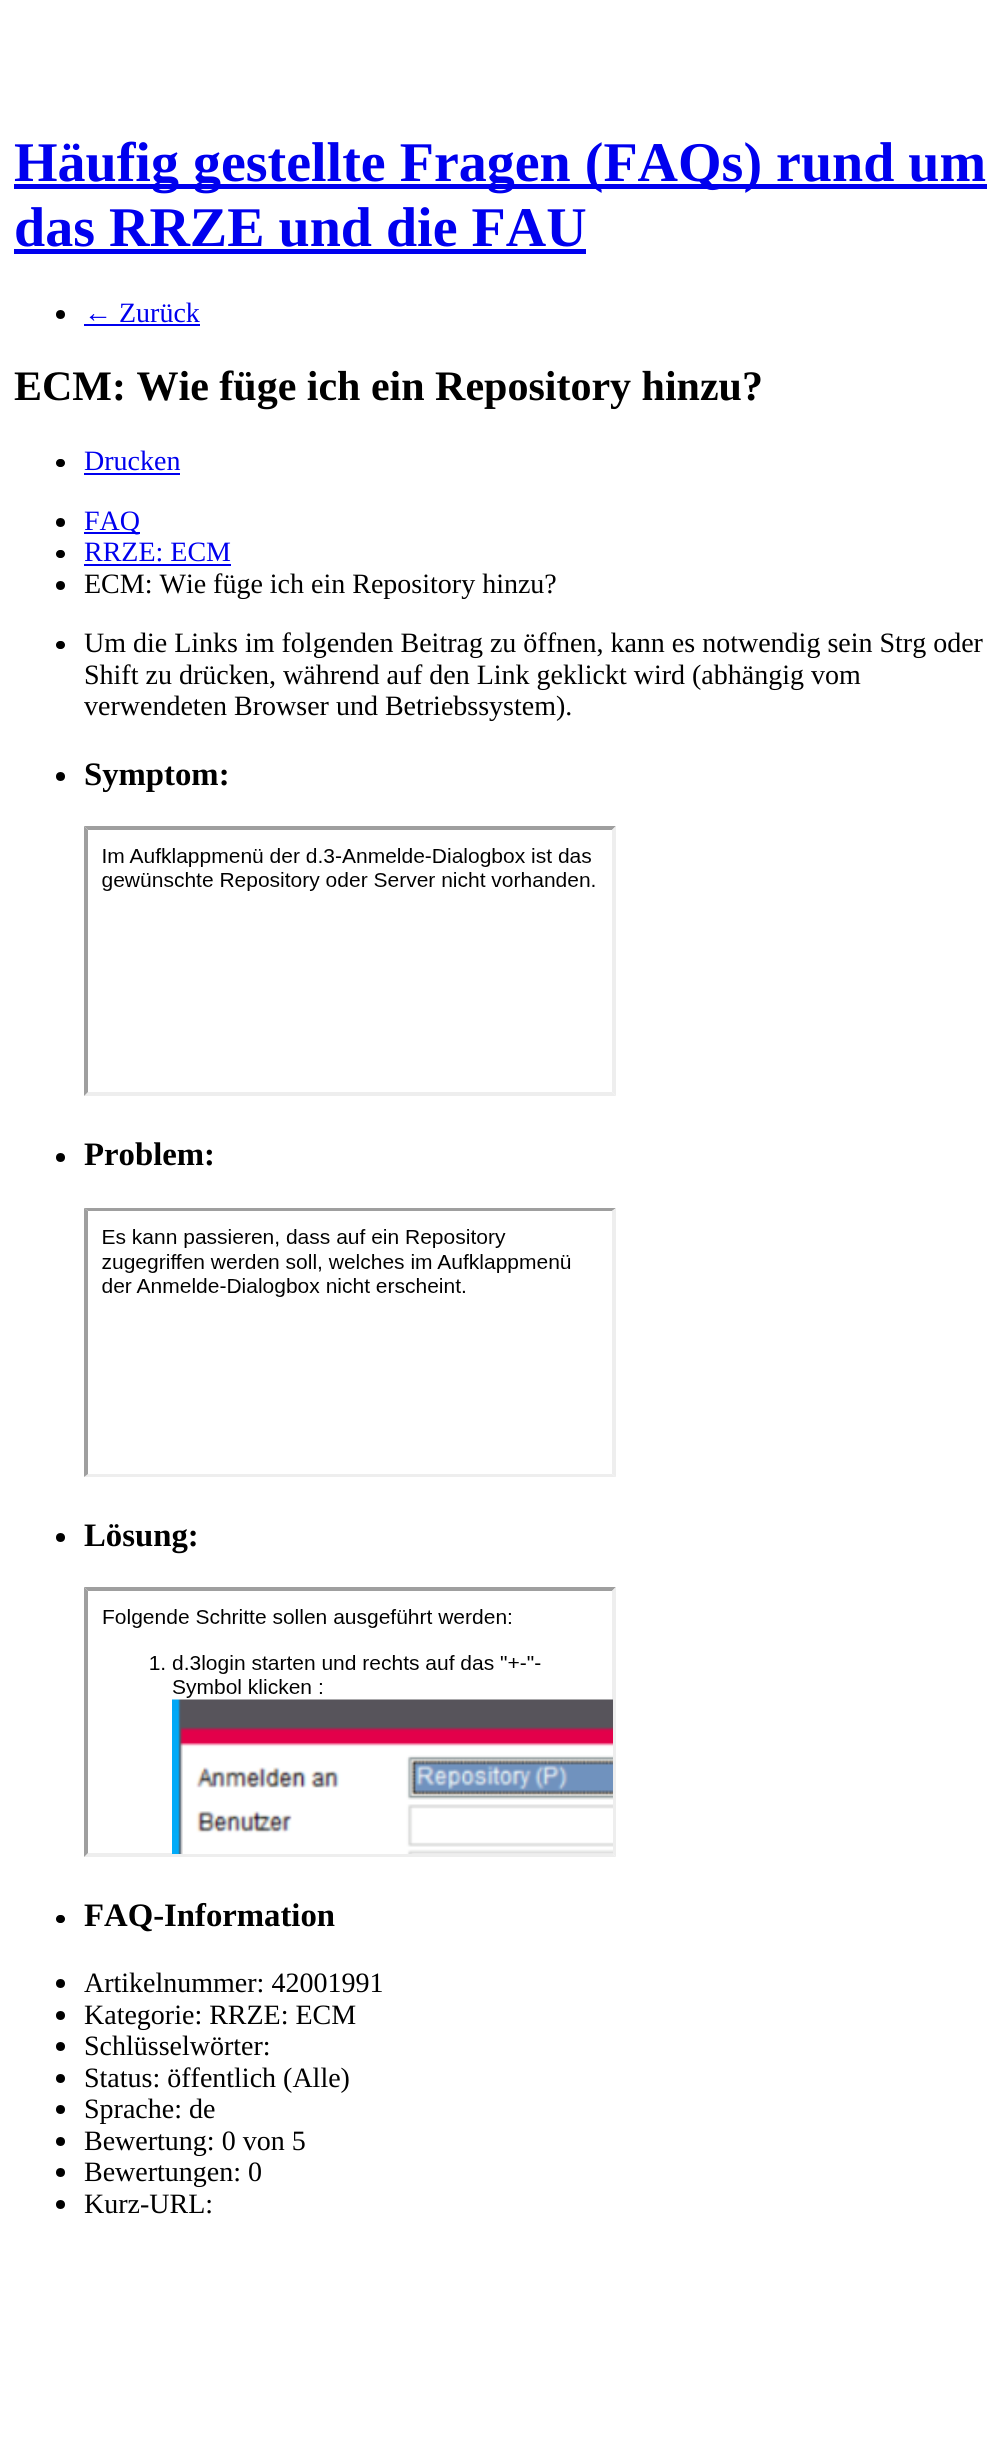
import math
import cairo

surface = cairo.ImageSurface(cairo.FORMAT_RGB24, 1008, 2437)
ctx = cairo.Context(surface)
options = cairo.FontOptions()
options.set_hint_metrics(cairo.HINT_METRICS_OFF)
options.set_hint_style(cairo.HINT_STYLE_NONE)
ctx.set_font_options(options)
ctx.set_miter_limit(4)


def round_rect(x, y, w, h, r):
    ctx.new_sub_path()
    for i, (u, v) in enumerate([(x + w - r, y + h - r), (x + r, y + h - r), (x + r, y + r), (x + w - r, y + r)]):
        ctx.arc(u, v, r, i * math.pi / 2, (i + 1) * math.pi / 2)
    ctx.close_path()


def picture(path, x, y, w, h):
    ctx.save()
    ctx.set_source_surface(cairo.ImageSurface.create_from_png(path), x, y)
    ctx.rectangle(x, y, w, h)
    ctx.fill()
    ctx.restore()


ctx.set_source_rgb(1, 1, 1)
ctx.paint()
ctx.set_source_rgb(0, 0, 0.933)
ctx.rectangle(14, 184, 973, 5)
ctx.fill()
ctx.select_font_face("Liberation Serif", cairo.FONT_SLANT_NORMAL, cairo.FONT_WEIGHT_BOLD)
ctx.set_font_size(56)
ctx.move_to(14, 181)
ctx.show_text("Häufig gestellte Fragen (FAQs) rund um")
ctx.move_to(14, 246)
ctx.show_text("das RRZE und die FAU")
ctx.rectangle(14, 249, 572, 5)
ctx.fill()
ctx.set_source_rgb(0, 0, 0)
ctx.arc(60.5, 314.5, 4.5, 0, 2 * math.pi)
ctx.fill()
ctx.select_font_face("Liberation Serif")
ctx.set_font_size(28)
ctx.set_source_rgb(0, 0, 0.933)
ctx.move_to(84, 322)
ctx.show_text("← Zurück")
ctx.rectangle(84, 324, 116, 2)
ctx.fill()
ctx.select_font_face("Liberation Serif", cairo.FONT_SLANT_NORMAL, cairo.FONT_WEIGHT_BOLD)
ctx.set_font_size(42)
ctx.set_source_rgb(0, 0, 0)
ctx.move_to(14, 400)
ctx.show_text("ECM: Wie füge ich ein Repository hinzu?")
round_rect(56, 459, 9, 8, 4)
ctx.fill()
ctx.select_font_face("Liberation Serif")
ctx.set_font_size(28)
ctx.set_source_rgb(0, 0, 0.933)
ctx.move_to(84, 470)
ctx.show_text("Drucken")
ctx.rectangle(84, 473, 96, 2)
ctx.fill()
ctx.set_source_rgb(0, 0, 0)
ctx.arc(60.5, 522.5, 4.5, 0, 2 * math.pi)
ctx.fill()
ctx.set_source_rgb(0, 0, 0.933)
ctx.rectangle(84, 532, 56, 2)
ctx.fill()
ctx.move_to(84, 530)
ctx.show_text("FAQ")
ctx.set_source_rgb(0, 0, 0)
round_rect(56, 550, 9, 8, 4)
ctx.fill()
ctx.set_source_rgb(0, 0, 0.933)
ctx.move_to(84, 561)
ctx.show_text("RRZE: ECM")
ctx.rectangle(84, 564, 147, 2)
ctx.fill()
ctx.set_source_rgb(0, 0, 0)
ctx.arc(60.5, 585.5, 4.5, 0, 2 * math.pi)
ctx.fill()
ctx.move_to(84, 593)
ctx.show_text("ECM: Wie füge ich ein Repository hinzu?")
round_rect(56, 641, 9, 8, 4)
ctx.fill()
ctx.move_to(84, 652)
ctx.show_text("Um die Links im folgenden Beitrag zu öffnen, kann es notwendig sein Strg oder")
ctx.move_to(84, 684)
ctx.show_text("Shift zu drücken, während auf den Link geklickt wird (abhängig vom")
ctx.move_to(84, 715)
ctx.show_text("verwendeten Browser und Betriebssystem).")
ctx.new_path()
ctx.arc(60.5, 776.5, 4.5, 0, 2 * math.pi)
ctx.fill()
ctx.select_font_face("Liberation Serif", cairo.FONT_SLANT_NORMAL, cairo.FONT_WEIGHT_BOLD)
ctx.set_font_size(32.75)
ctx.move_to(84, 785)
ctx.show_text("Symptom:")
ctx.set_source_rgb(0.624, 0.624, 0.624)
ctx.new_path()
ctx.move_to(84, 826)
ctx.line_to(616, 826)
ctx.line_to(612, 830)
ctx.line_to(88, 830)
ctx.close_path()
ctx.fill()
ctx.set_source_rgb(0.933, 0.933, 0.933)
ctx.new_path()
ctx.move_to(616, 826)
ctx.line_to(616, 1096)
ctx.line_to(612, 1092)
ctx.line_to(612, 830)
ctx.close_path()
ctx.fill()
ctx.new_path()
ctx.move_to(616, 1096)
ctx.line_to(84, 1096)
ctx.line_to(88, 1092)
ctx.line_to(612, 1092)
ctx.close_path()
ctx.fill()
ctx.set_source_rgb(0.624, 0.624, 0.624)
ctx.new_path()
ctx.move_to(84, 1096)
ctx.line_to(84, 826)
ctx.line_to(88, 830)
ctx.line_to(88, 1092)
ctx.close_path()
ctx.fill()
picture("img1.png", 102, 848, 493, 43)
ctx.set_source_rgb(0, 0, 0)
ctx.arc(60.5, 1157.5, 4.5, 0, 2 * math.pi)
ctx.fill()
ctx.move_to(84, 1165)
ctx.show_text("Problem:")
ctx.set_source_rgb(0.624, 0.624, 0.624)
ctx.new_path()
ctx.move_to(84, 1208)
ctx.line_to(616, 1208)
ctx.line_to(612, 1211)
ctx.line_to(88, 1211)
ctx.close_path()
ctx.fill()
ctx.set_source_rgb(0.933, 0.933, 0.933)
ctx.new_path()
ctx.move_to(616, 1208)
ctx.line_to(616, 1477)
ctx.line_to(612, 1474)
ctx.line_to(612, 1211)
ctx.close_path()
ctx.fill()
ctx.new_path()
ctx.move_to(616, 1477)
ctx.line_to(84, 1477)
ctx.line_to(88, 1474)
ctx.line_to(612, 1474)
ctx.close_path()
ctx.fill()
ctx.set_source_rgb(0.624, 0.624, 0.624)
ctx.new_path()
ctx.move_to(84, 1477)
ctx.line_to(84, 1208)
ctx.line_to(88, 1211)
ctx.line_to(88, 1474)
ctx.close_path()
ctx.fill()
picture("img2.png", 102, 1229, 469, 68)
ctx.set_source_rgb(0, 0, 0)
ctx.arc(60.5, 1537.5, 4.5, 0, 2 * math.pi)
ctx.fill()
ctx.move_to(84, 1546)
ctx.show_text("Lösung:")
ctx.set_source_rgb(0.624, 0.624, 0.624)
ctx.new_path()
ctx.move_to(84, 1587)
ctx.line_to(616, 1587)
ctx.line_to(612, 1591)
ctx.line_to(88, 1591)
ctx.close_path()
ctx.fill()
ctx.set_source_rgb(0.933, 0.933, 0.933)
ctx.new_path()
ctx.move_to(616, 1587)
ctx.line_to(616, 1857)
ctx.line_to(612, 1853)
ctx.line_to(612, 1591)
ctx.close_path()
ctx.fill()
ctx.new_path()
ctx.move_to(616, 1857)
ctx.line_to(84, 1857)
ctx.line_to(88, 1853)
ctx.line_to(612, 1853)
ctx.close_path()
ctx.fill()
ctx.set_source_rgb(0.624, 0.624, 0.624)
ctx.new_path()
ctx.move_to(84, 1857)
ctx.line_to(84, 1587)
ctx.line_to(88, 1591)
ctx.line_to(88, 1853)
ctx.close_path()
ctx.fill()
picture("img3.png", 103, 1609, 510, 245)
ctx.set_source_rgb(0, 0, 0)
round_rect(56, 1915, 9, 8, 4)
ctx.fill()
ctx.move_to(84, 1926)
ctx.show_text("FAQ-Information")
ctx.new_path()
ctx.arc(60.5, 1983.5, 4.5, 0, 2 * math.pi)
ctx.fill()
ctx.select_font_face("Liberation Serif")
ctx.set_font_size(28)
ctx.move_to(84, 1992)
ctx.show_text("Artikelnummer: 42001991")
ctx.new_path()
ctx.arc(60.5, 2015.5, 4.5, 0, 2 * math.pi)
ctx.fill()
ctx.move_to(84, 2024)
ctx.show_text("Kategorie: RRZE: ECM")
ctx.new_path()
ctx.arc(60.5, 2046.5, 4.5, 0, 2 * math.pi)
ctx.fill()
ctx.move_to(84, 2055)
ctx.show_text("Schlüsselwörter:")
ctx.new_path()
ctx.arc(60.5, 2078.5, 4.5, 0, 2 * math.pi)
ctx.fill()
ctx.move_to(84, 2087)
ctx.show_text("Status: öffentlich (Alle)")
ctx.new_path()
ctx.arc(60.5, 2109.5, 4.5, 0, 2 * math.pi)
ctx.fill()
ctx.move_to(84, 2118)
ctx.show_text("Sprache: de")
ctx.new_path()
ctx.arc(60.5, 2141.5, 4.5, 0, 2 * math.pi)
ctx.fill()
ctx.move_to(84, 2150)
ctx.show_text("Bewertung: 0 von 5")
ctx.new_path()
ctx.arc(60.5, 2172.5, 4.5, 0, 2 * math.pi)
ctx.fill()
ctx.move_to(84, 2181)
ctx.show_text("Bewertungen: 0")
ctx.new_path()
ctx.arc(60.5, 2204.5, 4.5, 0, 2 * math.pi)
ctx.fill()
ctx.move_to(84, 2213)
ctx.show_text("Kurz-URL:")
surface.write_to_png("page.png")
